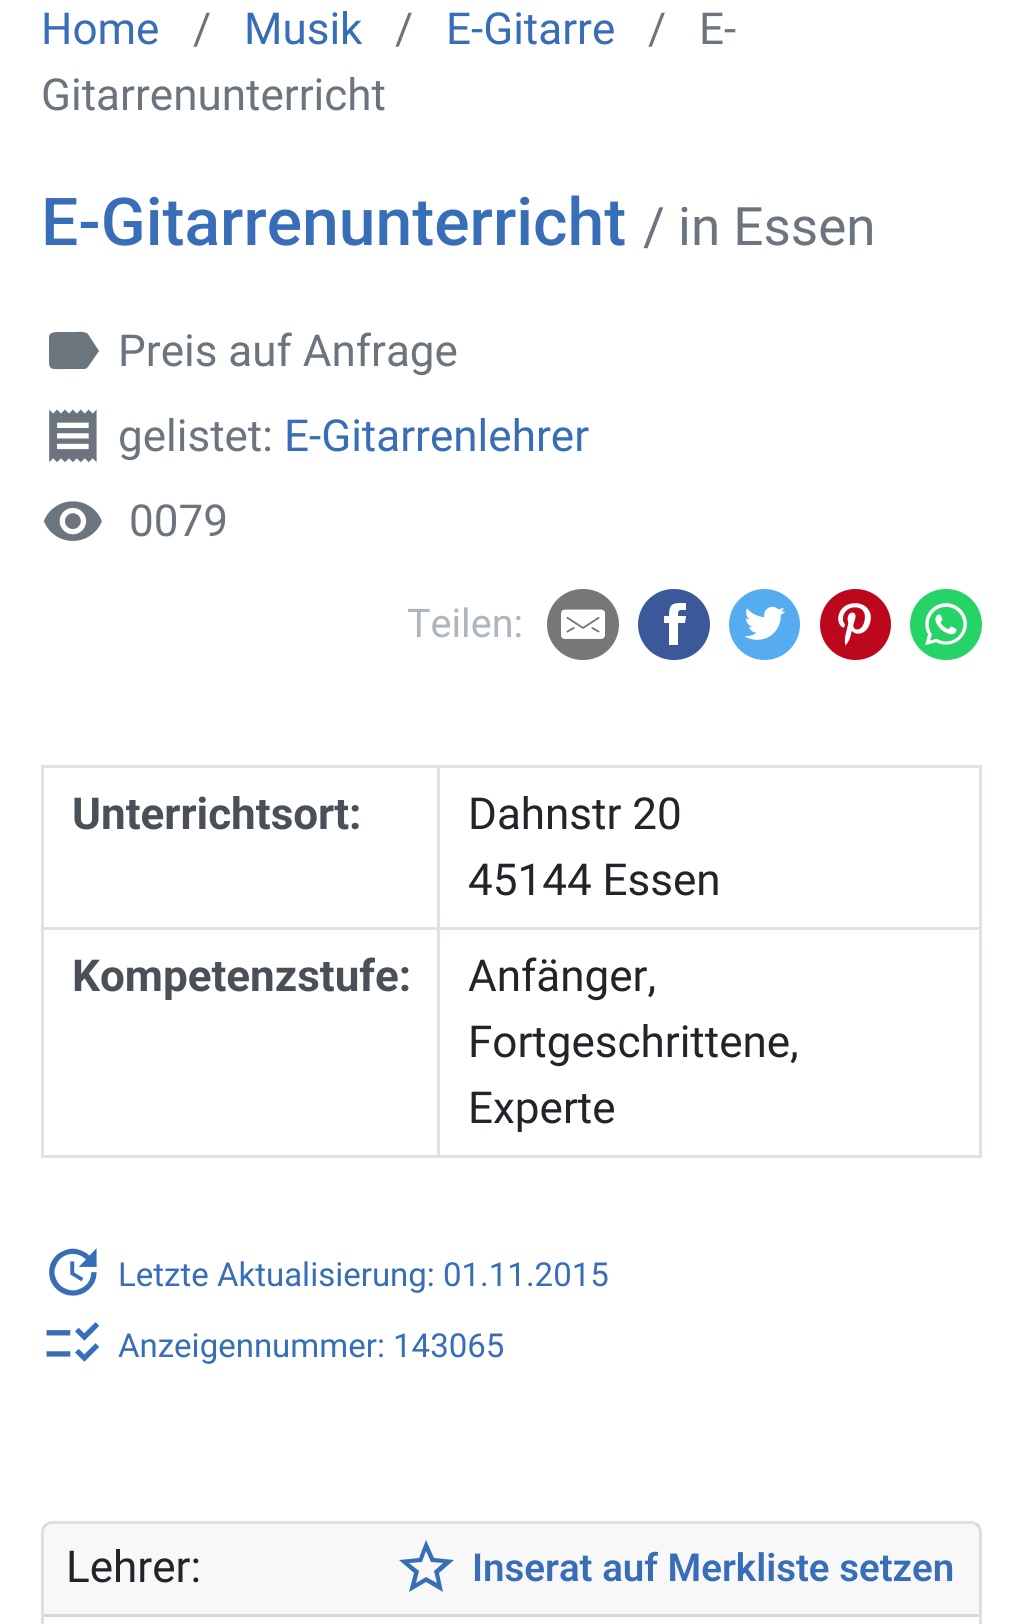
import math
import cairo

surface = cairo.ImageSurface(cairo.FORMAT_RGB24, 1021, 1624)
ctx = cairo.Context(surface)
options = cairo.FontOptions()
options.set_hint_metrics(cairo.HINT_METRICS_OFF)
options.set_hint_style(cairo.HINT_STYLE_NONE)
ctx.set_font_options(options)
ctx.set_miter_limit(4)


def round_rect(x, y, w, h, r):
    ctx.new_sub_path()
    for i, (u, v) in enumerate([(x + w - r, y + h - r), (x + r, y + h - r), (x + r, y + r), (x + w - r, y + r)]):
        ctx.arc(u, v, r, i * math.pi / 2, (i + 1) * math.pi / 2)
    ctx.close_path()


def picture(path, x, y, w, h):
    ctx.save()
    ctx.set_source_surface(cairo.ImageSurface.create_from_png(path), x, y)
    ctx.rectangle(x, y, w, h)
    ctx.fill()
    ctx.restore()


ctx.set_source_rgb(1, 1, 1)
ctx.paint()
ctx.select_font_face("Roboto")
ctx.set_font_size(44)
ctx.set_source_rgb(0.424, 0.459, 0.49)
ctx.move_to(193, 44)
ctx.show_text("/")
ctx.set_source_rgb(0.216, 0.431, 0.718)
ctx.move_to(244, 44)
ctx.show_text("Musik")
ctx.set_source_rgb(0.424, 0.459, 0.49)
ctx.move_to(648, 44)
ctx.show_text("/")
ctx.move_to(699, 44)
ctx.show_text("E-")
ctx.move_to(41, 110)
ctx.show_text("Gitarrenunterricht")
ctx.set_source_rgb(0.216, 0.431, 0.718)
ctx.move_to(41, 44)
ctx.show_text("Home")
ctx.set_source_rgb(0.424, 0.459, 0.49)
ctx.move_to(395, 44)
ctx.show_text("/")
ctx.set_source_rgb(0.216, 0.431, 0.718)
ctx.move_to(446, 44)
ctx.show_text("E-Gitarre")
ctx.select_font_face("Roboto Medium")
ctx.set_font_size(66)
ctx.move_to(41, 245)
ctx.show_text("E-Gitarrenunterricht")
ctx.select_font_face("Roboto")
ctx.set_font_size(53)
ctx.set_source_rgb(0.424, 0.459, 0.49)
ctx.move_to(643, 245)
ctx.show_text("/ in Essen")
ctx.new_path()
ctx.move_to(88, 334)
ctx.line_to(99, 351)
ctx.line_to(90, 364)
ctx.curve_to(86, 370, 86, 369, 79, 369)
ctx.line_to(69, 369)
ctx.curve_to(47, 369, 49, 372, 49, 351)
ctx.line_to(49, 336)
ctx.curve_to(50, 332, 56, 332, 59, 332)
ctx.line_to(74, 332)
ctx.curve_to(78, 332, 85, 331, 88, 334)
ctx.close_path()
ctx.fill()
ctx.set_font_size(44)
ctx.move_to(118, 366)
ctx.show_text("Preis auf Anfrage")
picture("img1.png", 49, 409, 48, 54)
ctx.move_to(118, 451)
ctx.show_text("gelistet:")
ctx.set_source_rgb(0.216, 0.431, 0.718)
ctx.move_to(284, 451)
ctx.show_text("E-Gitarrenlehrer")
picture("img2.png", 43, 501, 59, 40)
ctx.set_source_rgb(0.424, 0.459, 0.49)
ctx.move_to(129, 536)
ctx.show_text("0079")
ctx.set_font_size(39.5)
ctx.set_source_rgb(0.678, 0.71, 0.741)
ctx.move_to(407, 637)
ctx.show_text("Teilen:")
ctx.set_source_rgb(0.467, 0.467, 0.467)
round_rect(547, 589, 72, 71, 35.5)
ctx.fill()
picture("img3.png", 561, 609, 44, 30)
ctx.set_source_rgb(0.231, 0.349, 0.596)
round_rect(638, 589, 72, 71, 35.5)
ctx.fill()
ctx.set_source_rgb(1, 1, 1)
ctx.new_path()
ctx.move_to(686, 616)
ctx.line_to(678, 616)
ctx.curve_to(678, 609, 679, 610, 686, 610)
ctx.line_to(686, 603)
ctx.curve_to(674, 603, 669, 602, 669, 616)
ctx.line_to(664, 616)
ctx.line_to(664, 623)
ctx.line_to(669, 623)
ctx.line_to(669, 645)
ctx.line_to(678, 645)
ctx.line_to(678, 623)
ctx.line_to(685, 623)
ctx.close_path()
ctx.fill()
ctx.set_source_rgb(0.333, 0.675, 0.933)
ctx.arc(764.5, 624.5, 35.5, 0, 2 * math.pi)
ctx.fill()
picture("img4.png", 744, 606, 42, 34)
ctx.set_source_rgb(0.741, 0.031, 0.11)
ctx.arc(855.5, 624.5, 35.5, 0, 2 * math.pi)
ctx.fill()
picture("img5.png", 838, 603, 33, 43)
ctx.set_source_rgb(0.145, 0.827, 0.4)
round_rect(910, 589, 72, 71, 35.5)
ctx.fill()
picture("img6.png", 925, 603, 42, 43)
ctx.set_source_rgb(0.871, 0.886, 0.902)
ctx.rectangle(41, 765, 941, 3)
ctx.fill()
ctx.rectangle(979, 765, 3, 393)
ctx.fill()
ctx.rectangle(41, 1155, 941, 3)
ctx.fill()
ctx.rectangle(41, 765, 3, 393)
ctx.fill()
ctx.select_font_face("Roboto", cairo.FONT_SLANT_NORMAL, cairo.FONT_WEIGHT_BOLD)
ctx.set_font_size(44)
ctx.set_source_rgb(0.286, 0.314, 0.341)
ctx.move_to(72, 829)
ctx.show_text("Unterrichtsort:")
ctx.set_source_rgb(0.871, 0.886, 0.902)
ctx.rectangle(437, 927, 545, 3)
ctx.fill()
ctx.rectangle(437, 927, 3, 231)
ctx.fill()
ctx.rectangle(41, 927, 399, 3)
ctx.fill()
ctx.rectangle(437, 765, 3, 165)
ctx.fill()
ctx.select_font_face("Roboto")
ctx.set_source_rgb(0.129, 0.145, 0.161)
ctx.move_to(468, 829)
ctx.show_text("Dahnstr 20")
ctx.move_to(468, 895)
ctx.show_text("45144 Essen")
ctx.select_font_face("Roboto", cairo.FONT_SLANT_NORMAL, cairo.FONT_WEIGHT_BOLD)
ctx.set_source_rgb(0.286, 0.314, 0.341)
ctx.move_to(72, 991)
ctx.show_text("Kompetenzstufe:")
ctx.select_font_face("Roboto")
ctx.set_source_rgb(0.129, 0.145, 0.161)
ctx.move_to(468, 991)
ctx.show_text("Anfänger,")
ctx.move_to(468, 1057)
ctx.show_text("Fortgeschrittene,")
ctx.move_to(468, 1123)
ctx.show_text("Experte")
picture("img7.png", 49, 1248, 48, 48)
ctx.set_font_size(33)
ctx.set_source_rgb(0.216, 0.431, 0.718)
ctx.move_to(118, 1286)
ctx.show_text("Letzte Aktualisierung: 01.11.2015")
picture("img8.png", 46, 1322, 54, 40)
ctx.move_to(118, 1357)
ctx.show_text("Anzeigennummer: 143065")
round_rect(42.5, 1522.5, 938, 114, 9.5)
ctx.set_source_rgb(0.875, 0.875, 0.875)
ctx.set_line_width(3)
ctx.stroke()
ctx.set_source_rgba(0, 0, 0, 0.03)
ctx.rectangle(44, 1524, 935, 90)
ctx.fill()
ctx.set_source_rgb(0.847, 0.847, 0.847)
ctx.rectangle(44, 1614, 935, 3)
ctx.fill()
ctx.set_font_size(44)
ctx.set_source_rgb(0.129, 0.145, 0.161)
ctx.move_to(66, 1582)
ctx.show_text("Lehrer:")
ctx.set_source_rgb(0.216, 0.431, 0.718)
ctx.new_path()
ctx.move_to(426, 1577)
ctx.line_to(437, 1583)
ctx.line_to(434, 1571)
ctx.line_to(443, 1563)
ctx.line_to(431, 1562)
ctx.line_to(426, 1551)
ctx.line_to(422, 1562)
ctx.line_to(409, 1563)
ctx.line_to(419, 1571)
ctx.line_to(416, 1583)
ctx.close_path()
ctx.move_to(454, 1560)
ctx.line_to(439, 1573)
ctx.line_to(443, 1592)
ctx.line_to(426, 1582)
ctx.line_to(409, 1592)
ctx.line_to(414, 1573)
ctx.line_to(399, 1560)
ctx.line_to(419, 1558)
ctx.line_to(426, 1540)
ctx.line_to(434, 1558)
ctx.close_path()
ctx.fill()
ctx.select_font_face("Roboto SemiBold")
ctx.set_font_size(38.5)
ctx.move_to(472, 1581)
ctx.show_text("Inserat auf Merkliste setzen")
surface.write_to_png("page.png")
